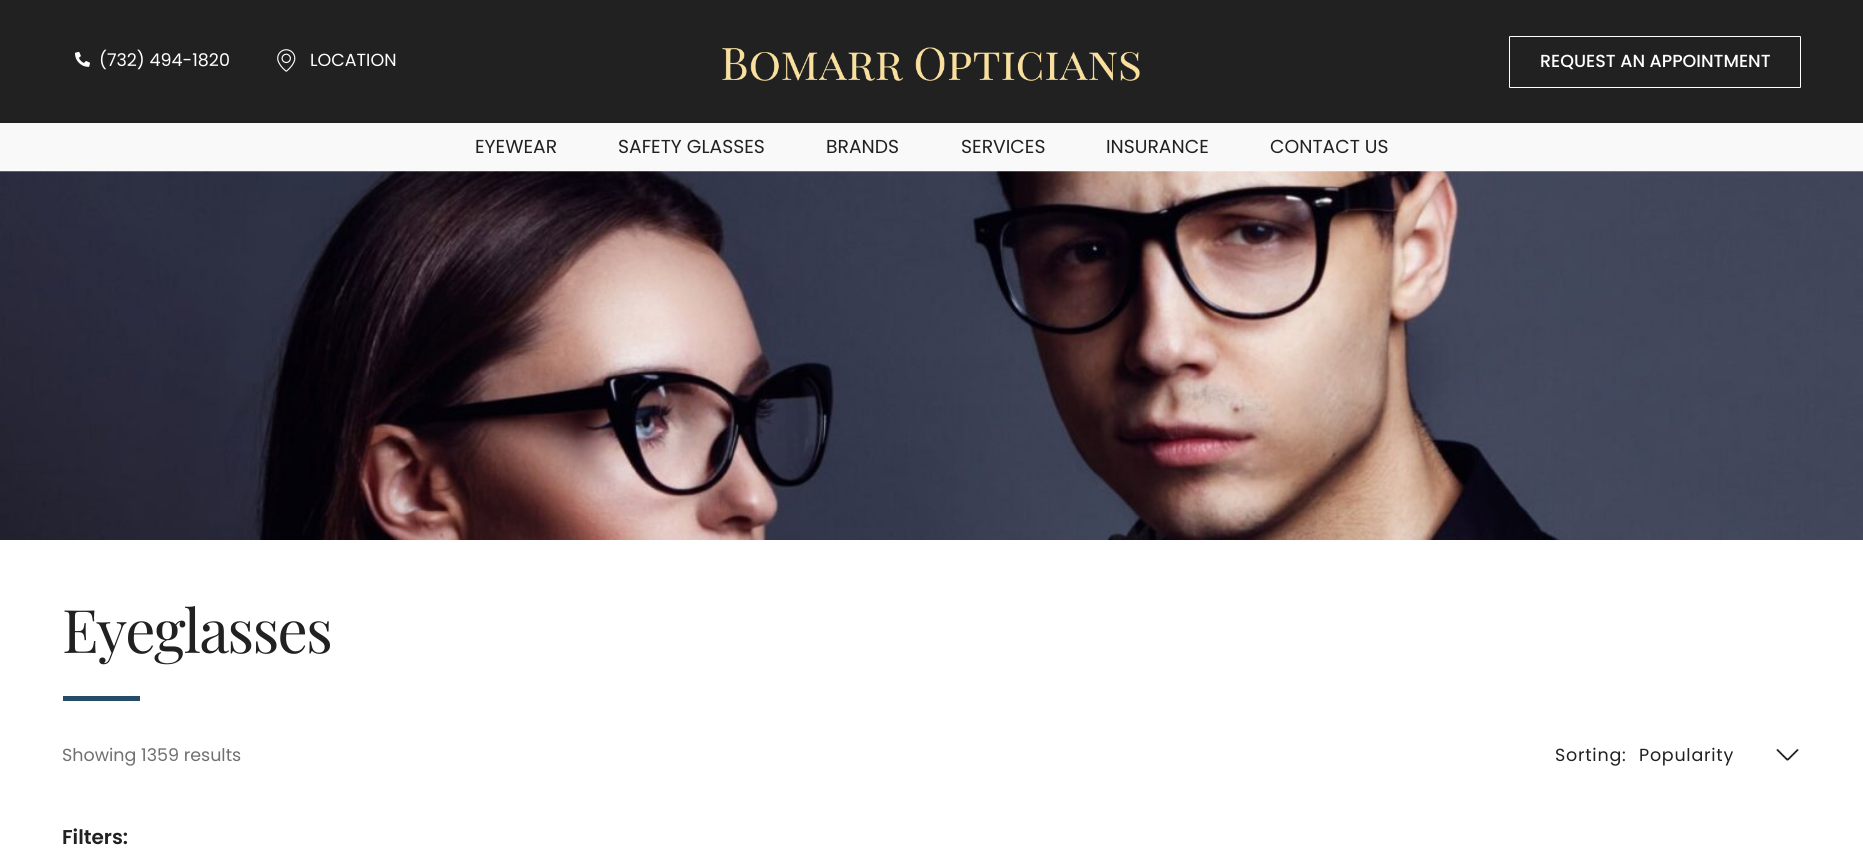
import math
import cairo

surface = cairo.ImageSurface(cairo.FORMAT_RGB24, 1863, 858)
ctx = cairo.Context(surface)
options = cairo.FontOptions()
options.set_hint_metrics(cairo.HINT_METRICS_OFF)
options.set_hint_style(cairo.HINT_STYLE_NONE)
ctx.set_font_options(options)
ctx.set_miter_limit(4)


def spaced_text(x, y, s, letter, word):
    ctx.move_to(x, y)
    for ch in s:
        ctx.show_text(ch)
        ctx.rel_move_to(letter + word * (ch == ' '), 0)


def round_rect(x, y, w, h, r):
    ctx.new_sub_path()
    for i, (u, v) in enumerate([(x + w - r, y + h - r), (x + r, y + h - r), (x + r, y + r), (x + w - r, y + r)]):
        ctx.arc(u, v, r, i * math.pi / 2, (i + 1) * math.pi / 2)
    ctx.close_path()


def picture(path, x, y, w, h):
    ctx.save()
    ctx.set_source_surface(cairo.ImageSurface.create_from_png(path), x, y)
    ctx.rectangle(x, y, w, h)
    ctx.fill()
    ctx.restore()


ctx.set_source_rgb(1, 1, 1)
ctx.paint()
ctx.set_source_rgb(0.129, 0.129, 0.129)
ctx.rectangle(0, 0, 1863, 123)
ctx.fill()
picture("img1.png", 75, 51, 15, 16)
ctx.select_font_face("Poppins")
ctx.set_font_size(17.5)
ctx.set_source_rgb(1, 1, 1)
ctx.move_to(99, 66)
ctx.show_text("(732) 494-1820")
picture("img2.png", 277, 49, 19, 23)
ctx.move_to(310, 66)
ctx.show_text("LOCATION")
picture("img3.png", 722, 47, 418, 34)
round_rect(1509.5, 36.5, 291, 51, 0.5)
ctx.set_line_width(1)
ctx.stroke()
ctx.select_font_face("Poppins Medium")
ctx.move_to(1540, 67)
ctx.show_text("REQUEST AN APPOINTMENT")
ctx.set_source_rgb(0.973, 0.973, 0.973)
ctx.rectangle(0, 123, 1863, 48)
ctx.fill()
ctx.select_font_face("Poppins")
ctx.set_font_size(18.75)
ctx.set_source_rgb(0.129, 0.129, 0.129)
ctx.move_to(475, 153)
ctx.show_text("EYEWEAR")
ctx.move_to(618, 153)
ctx.show_text("SAFETY GLASSES")
ctx.move_to(826, 153)
ctx.show_text("BRANDS")
ctx.move_to(961, 153)
ctx.show_text("SERVICES")
ctx.move_to(1106, 153)
ctx.show_text("INSURANCE")
ctx.move_to(1270, 153)
ctx.show_text("CONTACT US")
picture("img4.png", 0, 171, 1863, 369)
ctx.select_font_face("Playfair Display")
ctx.set_font_size(60)
spaced_text(62, 653, "Eyeglasses", -1.75, 0)
ctx.set_source_rgb(0.145, 0.294, 0.404)
ctx.rectangle(63, 696, 77, 5)
ctx.fill()
ctx.select_font_face("Poppins")
ctx.set_font_size(17.5)
ctx.set_source_rgb(0.439, 0.439, 0.439)
ctx.move_to(62, 761)
ctx.show_text("Showing 1359 results")
ctx.set_source_rgb(0.129, 0.129, 0.129)
spaced_text(1555, 761, "Sorting:", 0.75, 0)
spaced_text(1639, 761, "Popularity", 0.75, 0)
picture("img5.png", 1776, 748, 23, 13)
ctx.select_font_face("Poppins SemiBold")
ctx.set_font_size(20)
ctx.move_to(62, 844)
ctx.show_text("Filters:")
surface.write_to_png("page.png")
